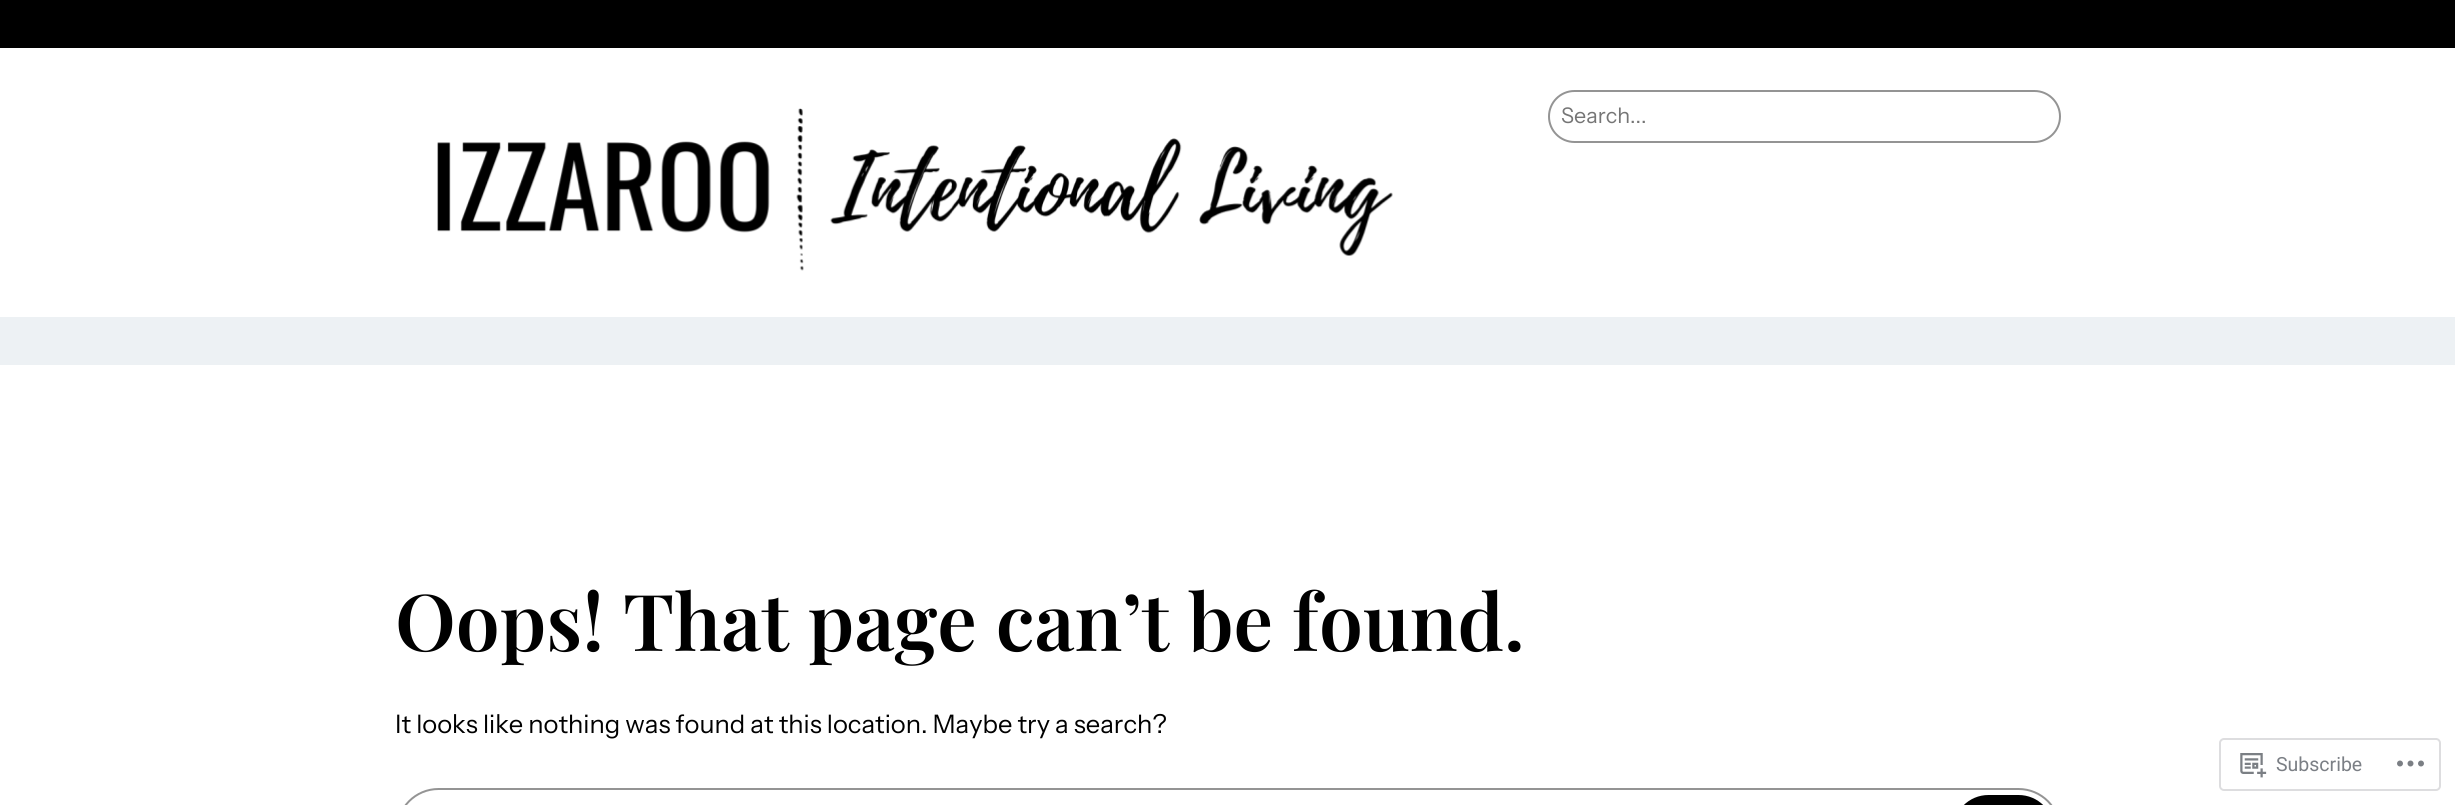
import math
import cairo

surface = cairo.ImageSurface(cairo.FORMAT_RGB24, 2455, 805)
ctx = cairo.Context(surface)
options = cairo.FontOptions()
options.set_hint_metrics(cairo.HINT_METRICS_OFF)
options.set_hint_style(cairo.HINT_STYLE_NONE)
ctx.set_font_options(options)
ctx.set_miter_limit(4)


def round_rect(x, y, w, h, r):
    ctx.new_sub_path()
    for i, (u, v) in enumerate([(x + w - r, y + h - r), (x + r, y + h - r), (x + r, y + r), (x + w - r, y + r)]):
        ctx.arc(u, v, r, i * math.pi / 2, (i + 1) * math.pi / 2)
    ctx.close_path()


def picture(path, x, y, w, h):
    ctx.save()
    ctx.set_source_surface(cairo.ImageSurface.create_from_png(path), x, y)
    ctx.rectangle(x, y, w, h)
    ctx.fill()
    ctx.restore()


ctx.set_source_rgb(1, 1, 1)
ctx.paint()
ctx.set_source_rgb(0, 0, 0)
ctx.rectangle(0, 0, 2455, 48)
ctx.fill()
picture("img1.png", 437, 108, 956, 163)
round_rect(1549, 91, 511, 51, 25.5)
ctx.set_source_rgb(0.58, 0.58, 0.58)
ctx.stroke()
ctx.select_font_face("Instrument Sans")
ctx.set_font_size(21.5)
ctx.set_source_rgb(0.459, 0.459, 0.459)
ctx.move_to(1561, 123)
ctx.show_text("Search...")
ctx.set_source_rgb(0.929, 0.945, 0.957)
ctx.rectangle(0, 317, 2455, 48)
ctx.fill()
ctx.select_font_face("Playfair Display SemiBold")
ctx.set_font_size(78.5)
ctx.set_source_rgb(0, 0, 0)
ctx.move_to(395, 651)
ctx.show_text("Oops! That page can’t be found.")
ctx.select_font_face("Instrument Sans")
ctx.set_font_size(25.5)
ctx.move_to(395, 733)
ctx.show_text("It looks like nothing was found at this location. Maybe try a search?")
round_rect(397, 789, 1663, 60, 41.5)
ctx.set_source_rgb(0.58, 0.58, 0.58)
ctx.stroke()
ctx.set_source_rgb(0, 0, 0)
round_rect(1953, 795, 101, 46, 35.5)
ctx.fill()
round_rect(2220, 739, 220, 51, 4)
ctx.set_source_rgb(0.867, 0.867, 0.875)
ctx.stroke()
picture("img2.png", 2240, 753, 27, 25)
ctx.select_font_face("Roboto")
ctx.set_font_size(19.5)
ctx.set_source_rgb(0.482, 0.498, 0.522)
ctx.move_to(2276, 771)
ctx.show_text("Subscribe")
picture("img3.png", 2397, 760, 27, 7)
surface.write_to_png("page.png")
